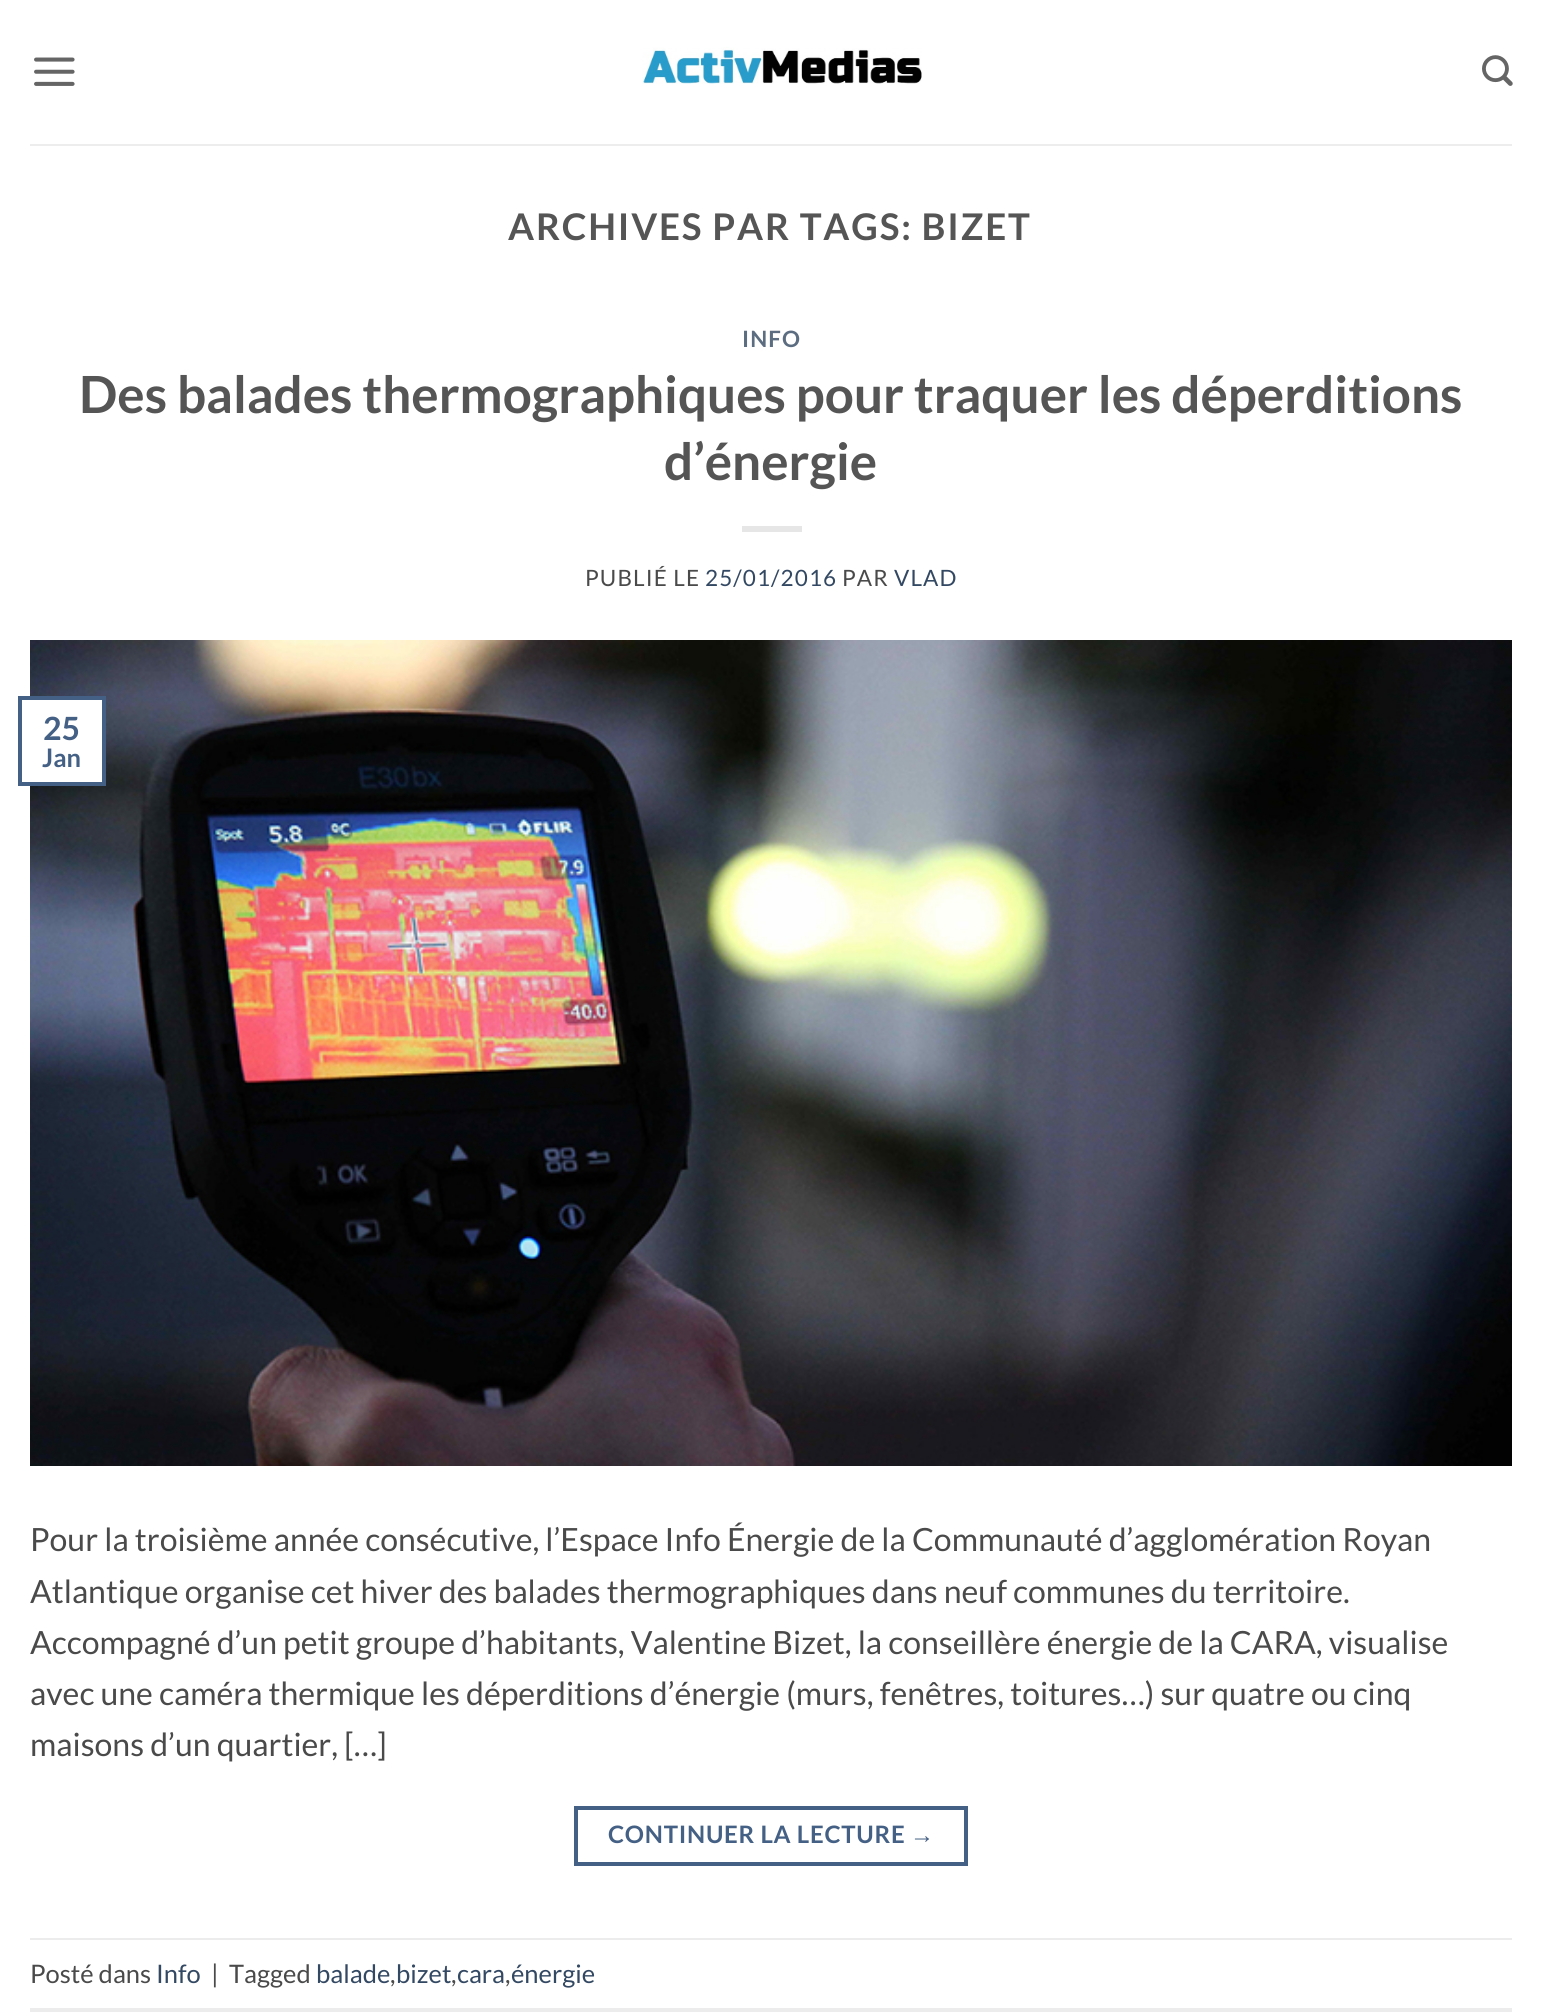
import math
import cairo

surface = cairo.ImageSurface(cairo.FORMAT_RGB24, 1542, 2016)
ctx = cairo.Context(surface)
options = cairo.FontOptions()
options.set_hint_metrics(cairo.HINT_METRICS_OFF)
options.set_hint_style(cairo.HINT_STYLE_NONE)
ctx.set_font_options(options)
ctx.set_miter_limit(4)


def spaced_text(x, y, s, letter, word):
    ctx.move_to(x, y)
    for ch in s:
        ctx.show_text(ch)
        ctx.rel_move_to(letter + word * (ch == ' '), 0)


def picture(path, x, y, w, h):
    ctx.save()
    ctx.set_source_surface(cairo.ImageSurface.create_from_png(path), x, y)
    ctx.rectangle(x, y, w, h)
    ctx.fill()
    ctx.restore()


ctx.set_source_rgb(1, 1, 1)
ctx.paint()
picture("img1.png", 34, 57, 41, 29)
picture("img2.png", 642, 47, 280, 37)
picture("img3.png", 1482, 55, 31, 31)
ctx.set_source_rgb(0.929, 0.929, 0.929)
ctx.rectangle(30, 144, 1482, 2)
ctx.fill()
ctx.select_font_face("Lato", cairo.FONT_SLANT_NORMAL, cairo.FONT_WEIGHT_BOLD)
ctx.set_font_size(36.75)
ctx.set_source_rgb(0.333, 0.333, 0.333)
spaced_text(508, 240, "ARCHIVES PAR TAGS: BIZET", 1.8, 0)
ctx.set_font_size(22.5)
ctx.set_source_rgb(0.361, 0.427, 0.506)
spaced_text(742, 347, "INFO", 1.1, 0)
ctx.set_font_size(51.2)
ctx.set_source_rgb(0.333, 0.333, 0.333)
ctx.move_to(79, 413)
ctx.show_text("Des balades thermographiques pour traquer les déperditions")
ctx.move_to(664, 480)
ctx.show_text("d’énergie")
ctx.set_source_rgb(0.902, 0.902, 0.902)
ctx.rectangle(742, 526, 60, 6)
ctx.fill()
ctx.select_font_face("Lato")
ctx.set_font_size(22.5)
ctx.set_source_rgb(0.29, 0.29, 0.29)
spaced_text(585, 586, "PUBLIÉ LE", 1.1, 0)
ctx.set_source_rgb(0.2, 0.282, 0.384)
spaced_text(705, 586, "25/01/2016", 1.1, 0)
ctx.set_source_rgb(0.29, 0.29, 0.29)
spaced_text(842, 586, "PAR", 1.1, 0)
ctx.set_source_rgb(0.2, 0.282, 0.384)
spaced_text(894, 586, "VLAD", 1.1, 0)
picture("img4.png", 30, 640, 1482, 826)
ctx.set_source_rgb(1, 1, 1)
ctx.rectangle(30, 700, 72, 82)
ctx.fill()
ctx.rectangle(20, 698, 84, 86)
ctx.set_source_rgb(0.267, 0.376, 0.518)
ctx.set_line_width(4)
ctx.stroke()
ctx.select_font_face("Lato", cairo.FONT_SLANT_NORMAL, cairo.FONT_WEIGHT_BOLD)
ctx.set_font_size(32)
ctx.move_to(43, 740)
ctx.show_text("25")
ctx.set_font_size(25.5)
ctx.move_to(42, 767)
ctx.show_text("Jan")
ctx.select_font_face("Lato")
ctx.set_font_size(32)
ctx.set_source_rgb(0.29, 0.29, 0.29)
ctx.move_to(30, 1551)
ctx.show_text("Pour la troisième année consécutive, l’Espace Info Énergie de la Communauté d’agglomération Royan")
ctx.move_to(30, 1603)
ctx.show_text("Atlantique organise cet hiver des balades thermographiques dans neuf communes du territoire.")
ctx.move_to(30, 1654)
ctx.show_text("Accompagné d’un petit groupe d’habitants, Valentine Bizet, la conseillère énergie de la CARA, visualise")
ctx.move_to(30, 1705)
ctx.show_text("avec une caméra thermique les déperditions d’énergie (murs, fenêtres, toitures…) sur quatre ou cinq")
ctx.move_to(30, 1756)
ctx.show_text("maisons d’un quartier, […]")
ctx.rectangle(576, 1808, 390, 56)
ctx.set_source_rgb(0.267, 0.376, 0.518)
ctx.stroke()
ctx.select_font_face("Lato", cairo.FONT_SLANT_NORMAL, cairo.FONT_WEIGHT_BOLD)
ctx.set_font_size(24)
spaced_text(608, 1843, "CONTINUER LA LECTURE", 0.75, 0)
ctx.select_font_face("Liberation Sans", cairo.FONT_SLANT_NORMAL, cairo.FONT_WEIGHT_BOLD)
spaced_text(910, 1843, "→", 0.75, 0)
ctx.set_source_rgb(0.925, 0.925, 0.925)
ctx.rectangle(30, 1938, 1482, 2)
ctx.fill()
ctx.rectangle(30, 2008, 1482, 4)
ctx.fill()
ctx.select_font_face("Lato")
ctx.set_font_size(25.5)
ctx.set_source_rgb(0.29, 0.29, 0.29)
ctx.move_to(30, 1983)
ctx.show_text("Posté dans")
ctx.set_source_rgb(0.2, 0.282, 0.384)
ctx.move_to(156, 1983)
ctx.show_text("Info")
ctx.set_source_rgb(0.29, 0.29, 0.29)
ctx.move_to(211, 1983)
ctx.show_text("|")
ctx.move_to(229, 1983)
ctx.show_text("Tagged")
ctx.set_source_rgb(0.2, 0.282, 0.384)
ctx.move_to(316, 1983)
ctx.show_text("balade")
ctx.set_source_rgb(0.29, 0.29, 0.29)
ctx.move_to(390, 1983)
ctx.show_text(",")
ctx.set_source_rgb(0.2, 0.282, 0.384)
ctx.move_to(396, 1983)
ctx.show_text("bizet")
ctx.set_source_rgb(0.29, 0.29, 0.29)
ctx.move_to(451, 1983)
ctx.show_text(",")
ctx.set_source_rgb(0.2, 0.282, 0.384)
ctx.move_to(457, 1983)
ctx.show_text("cara")
ctx.set_source_rgb(0.29, 0.29, 0.29)
ctx.move_to(505, 1983)
ctx.show_text(",")
ctx.set_source_rgb(0.2, 0.282, 0.384)
ctx.move_to(511, 1983)
ctx.show_text("énergie")
surface.write_to_png("page.png")
